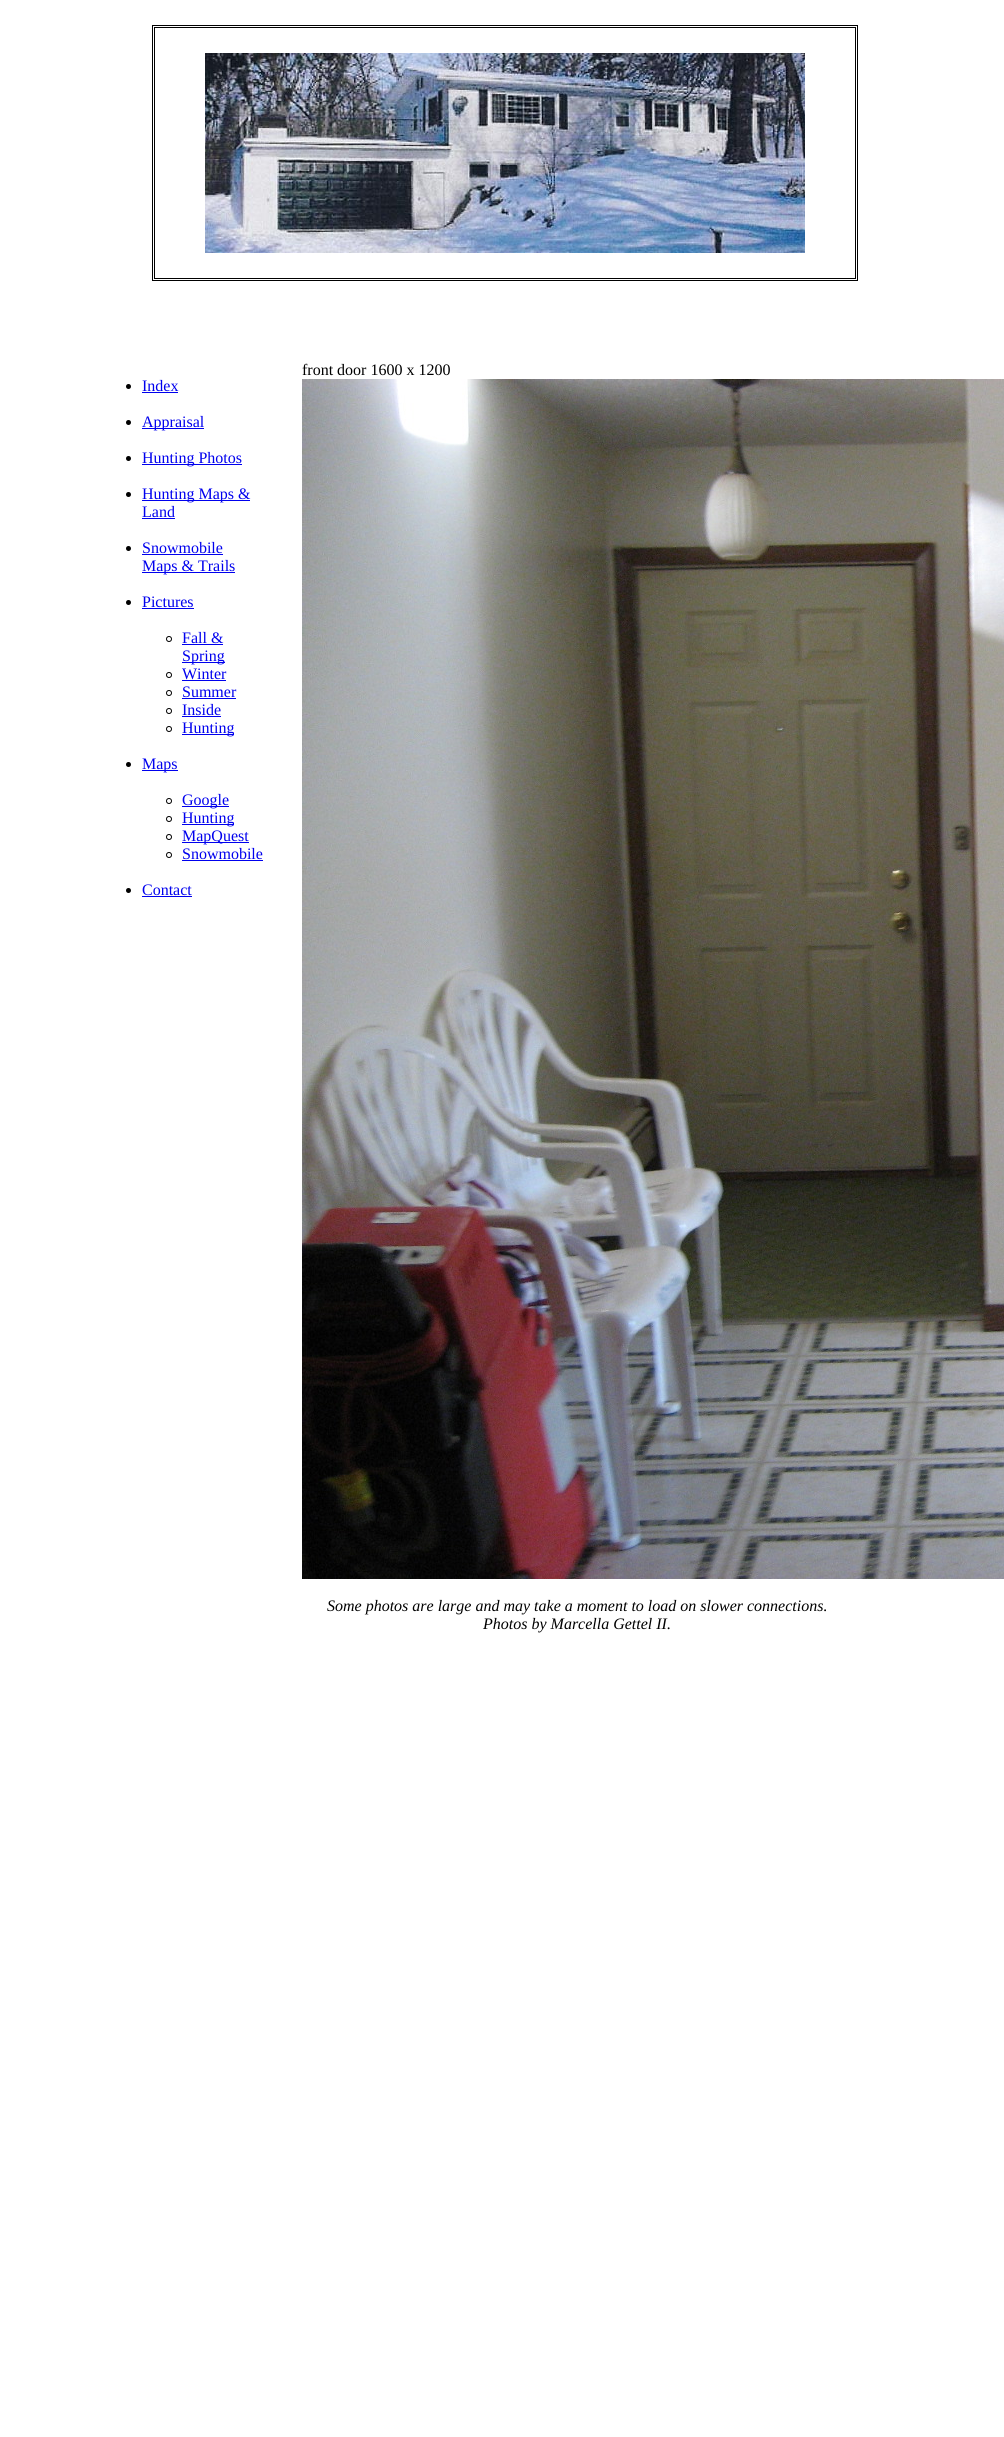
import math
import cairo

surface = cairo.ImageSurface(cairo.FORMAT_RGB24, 1004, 2437)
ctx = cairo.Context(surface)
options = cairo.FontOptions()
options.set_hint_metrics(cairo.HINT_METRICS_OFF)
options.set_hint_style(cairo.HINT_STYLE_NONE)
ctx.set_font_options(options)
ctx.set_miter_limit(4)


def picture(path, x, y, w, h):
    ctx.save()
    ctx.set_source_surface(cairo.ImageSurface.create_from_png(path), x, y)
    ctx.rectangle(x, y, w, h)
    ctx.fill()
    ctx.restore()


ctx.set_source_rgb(1, 1, 1)
ctx.paint()
picture("img1.png", 205, 53, 600, 200)
ctx.rectangle(152.5, 25.5, 705, 255)
ctx.set_source_rgb(0, 0, 0)
ctx.set_line_width(1)
ctx.stroke()
ctx.rectangle(154.5, 27.5, 701, 251)
ctx.stroke()
ctx.arc(128.5, 386.5, 2.5, 0, 2 * math.pi)
ctx.fill()
ctx.select_font_face("Liberation Serif")
ctx.set_font_size(16)
ctx.set_source_rgb(0, 0, 0.933)
ctx.move_to(142, 391)
ctx.show_text("Index")
ctx.rectangle(142, 392, 36, 1)
ctx.fill()
ctx.set_source_rgb(0, 0, 0)
ctx.arc(128.5, 422.5, 2.5, 0, 2 * math.pi)
ctx.fill()
ctx.set_source_rgb(0, 0, 0.933)
ctx.rectangle(142, 428, 62, 1)
ctx.fill()
ctx.move_to(142, 427)
ctx.show_text("Appraisal")
ctx.set_source_rgb(0, 0, 0)
ctx.new_path()
ctx.arc(128.5, 458.5, 2.5, 0, 2 * math.pi)
ctx.fill()
ctx.set_source_rgb(0, 0, 0.933)
ctx.rectangle(142, 464, 100, 1)
ctx.fill()
ctx.move_to(142, 463)
ctx.show_text("Hunting Photos")
ctx.set_source_rgb(0, 0, 0)
ctx.new_path()
ctx.arc(128.5, 494.5, 2.5, 0, 2 * math.pi)
ctx.fill()
ctx.set_source_rgb(0, 0, 0.933)
ctx.rectangle(142, 500, 108, 1)
ctx.fill()
ctx.move_to(142, 499)
ctx.show_text("Hunting Maps &")
ctx.move_to(142, 517)
ctx.show_text("Land")
ctx.rectangle(142, 518, 33, 1)
ctx.fill()
ctx.set_source_rgb(0, 0, 0)
ctx.arc(128.5, 548.5, 2.5, 0, 2 * math.pi)
ctx.fill()
ctx.set_source_rgb(0, 0, 0.933)
ctx.move_to(142, 553)
ctx.show_text("Snowmobile")
ctx.rectangle(142, 554, 81, 1)
ctx.fill()
ctx.rectangle(142, 572, 93, 1)
ctx.fill()
ctx.move_to(142, 571)
ctx.show_text("Maps & Trails")
ctx.set_source_rgb(0, 0, 0)
ctx.new_path()
ctx.arc(128.5, 602.5, 2.5, 0, 2 * math.pi)
ctx.fill()
ctx.set_source_rgb(0, 0, 0.933)
ctx.move_to(142, 607)
ctx.show_text("Pictures")
ctx.rectangle(142, 608, 52, 1)
ctx.fill()
ctx.arc(169, 639, 2.5, 0, 2 * math.pi)
ctx.set_source_rgb(0, 0, 0)
ctx.stroke()
ctx.set_source_rgb(0, 0, 0.933)
ctx.move_to(182, 643)
ctx.show_text("Fall &")
ctx.rectangle(182, 644, 41, 1)
ctx.fill()
ctx.rectangle(182, 662, 43, 1)
ctx.fill()
ctx.move_to(182, 661)
ctx.show_text("Spring")
ctx.new_path()
ctx.arc(169, 675, 2.5, 0, 2 * math.pi)
ctx.set_source_rgb(0, 0, 0)
ctx.stroke()
ctx.set_source_rgb(0, 0, 0.933)
ctx.move_to(182, 679)
ctx.show_text("Winter")
ctx.rectangle(182, 680, 44, 1)
ctx.fill()
ctx.arc(169, 693, 2.5, 0, 2 * math.pi)
ctx.set_source_rgb(0, 0, 0)
ctx.stroke()
ctx.set_source_rgb(0, 0, 0.933)
ctx.move_to(182, 697)
ctx.show_text("Summer")
ctx.rectangle(182, 698, 54, 1)
ctx.fill()
ctx.arc(169, 711, 2.5, 0, 2 * math.pi)
ctx.set_source_rgb(0, 0, 0)
ctx.stroke()
ctx.set_source_rgb(0, 0, 0.933)
ctx.move_to(182, 715)
ctx.show_text("Inside")
ctx.rectangle(182, 716, 39, 1)
ctx.fill()
ctx.arc(169, 729, 2.5, 0, 2 * math.pi)
ctx.set_source_rgb(0, 0, 0)
ctx.stroke()
ctx.set_source_rgb(0, 0, 0.933)
ctx.rectangle(182, 734, 52, 1)
ctx.fill()
ctx.move_to(182, 733)
ctx.show_text("Hunting")
ctx.set_source_rgb(0, 0, 0)
ctx.new_path()
ctx.arc(128.5, 764.5, 2.5, 0, 2 * math.pi)
ctx.fill()
ctx.set_source_rgb(0, 0, 0.933)
ctx.rectangle(142, 770, 36, 1)
ctx.fill()
ctx.move_to(142, 769)
ctx.show_text("Maps")
ctx.new_path()
ctx.arc(169, 801, 2.5, 0, 2 * math.pi)
ctx.set_source_rgb(0, 0, 0)
ctx.stroke()
ctx.set_source_rgb(0, 0, 0.933)
ctx.rectangle(182, 806, 47, 1)
ctx.fill()
ctx.move_to(182, 805)
ctx.show_text("Google")
ctx.new_path()
ctx.arc(169, 819, 2.5, 0, 2 * math.pi)
ctx.set_source_rgb(0, 0, 0)
ctx.stroke()
ctx.set_source_rgb(0, 0, 0.933)
ctx.rectangle(182, 824, 52, 1)
ctx.fill()
ctx.move_to(182, 823)
ctx.show_text("Hunting")
ctx.new_path()
ctx.arc(169, 837, 2.5, 0, 2 * math.pi)
ctx.set_source_rgb(0, 0, 0)
ctx.stroke()
ctx.set_source_rgb(0, 0, 0.933)
ctx.rectangle(182, 842, 67, 1)
ctx.fill()
ctx.move_to(182, 841)
ctx.show_text("MapQuest")
ctx.new_path()
ctx.arc(169, 855, 2.5, 0, 2 * math.pi)
ctx.set_source_rgb(0, 0, 0)
ctx.stroke()
ctx.set_source_rgb(0, 0, 0.933)
ctx.move_to(182, 859)
ctx.show_text("Snowmobile")
ctx.rectangle(182, 860, 81, 1)
ctx.fill()
ctx.set_source_rgb(0, 0, 0)
ctx.arc(128.5, 890.5, 2.5, 0, 2 * math.pi)
ctx.fill()
ctx.set_source_rgb(0, 0, 0.933)
ctx.move_to(142, 895)
ctx.show_text("Contact")
ctx.rectangle(142, 896, 50, 1)
ctx.fill()
ctx.set_source_rgb(0, 0, 0)
ctx.move_to(302, 375)
ctx.show_text("front door 1600 x 1200")
picture("img2.png", 302, 379, 702, 1200)
ctx.select_font_face("Liberation Serif", cairo.FONT_SLANT_ITALIC)
ctx.move_to(327, 1611)
ctx.show_text("Some photos are large and may take a moment to load on slower connections.")
ctx.move_to(483, 1629)
ctx.show_text("Photos by Marcella Gettel II.")
surface.write_to_png("page.png")
